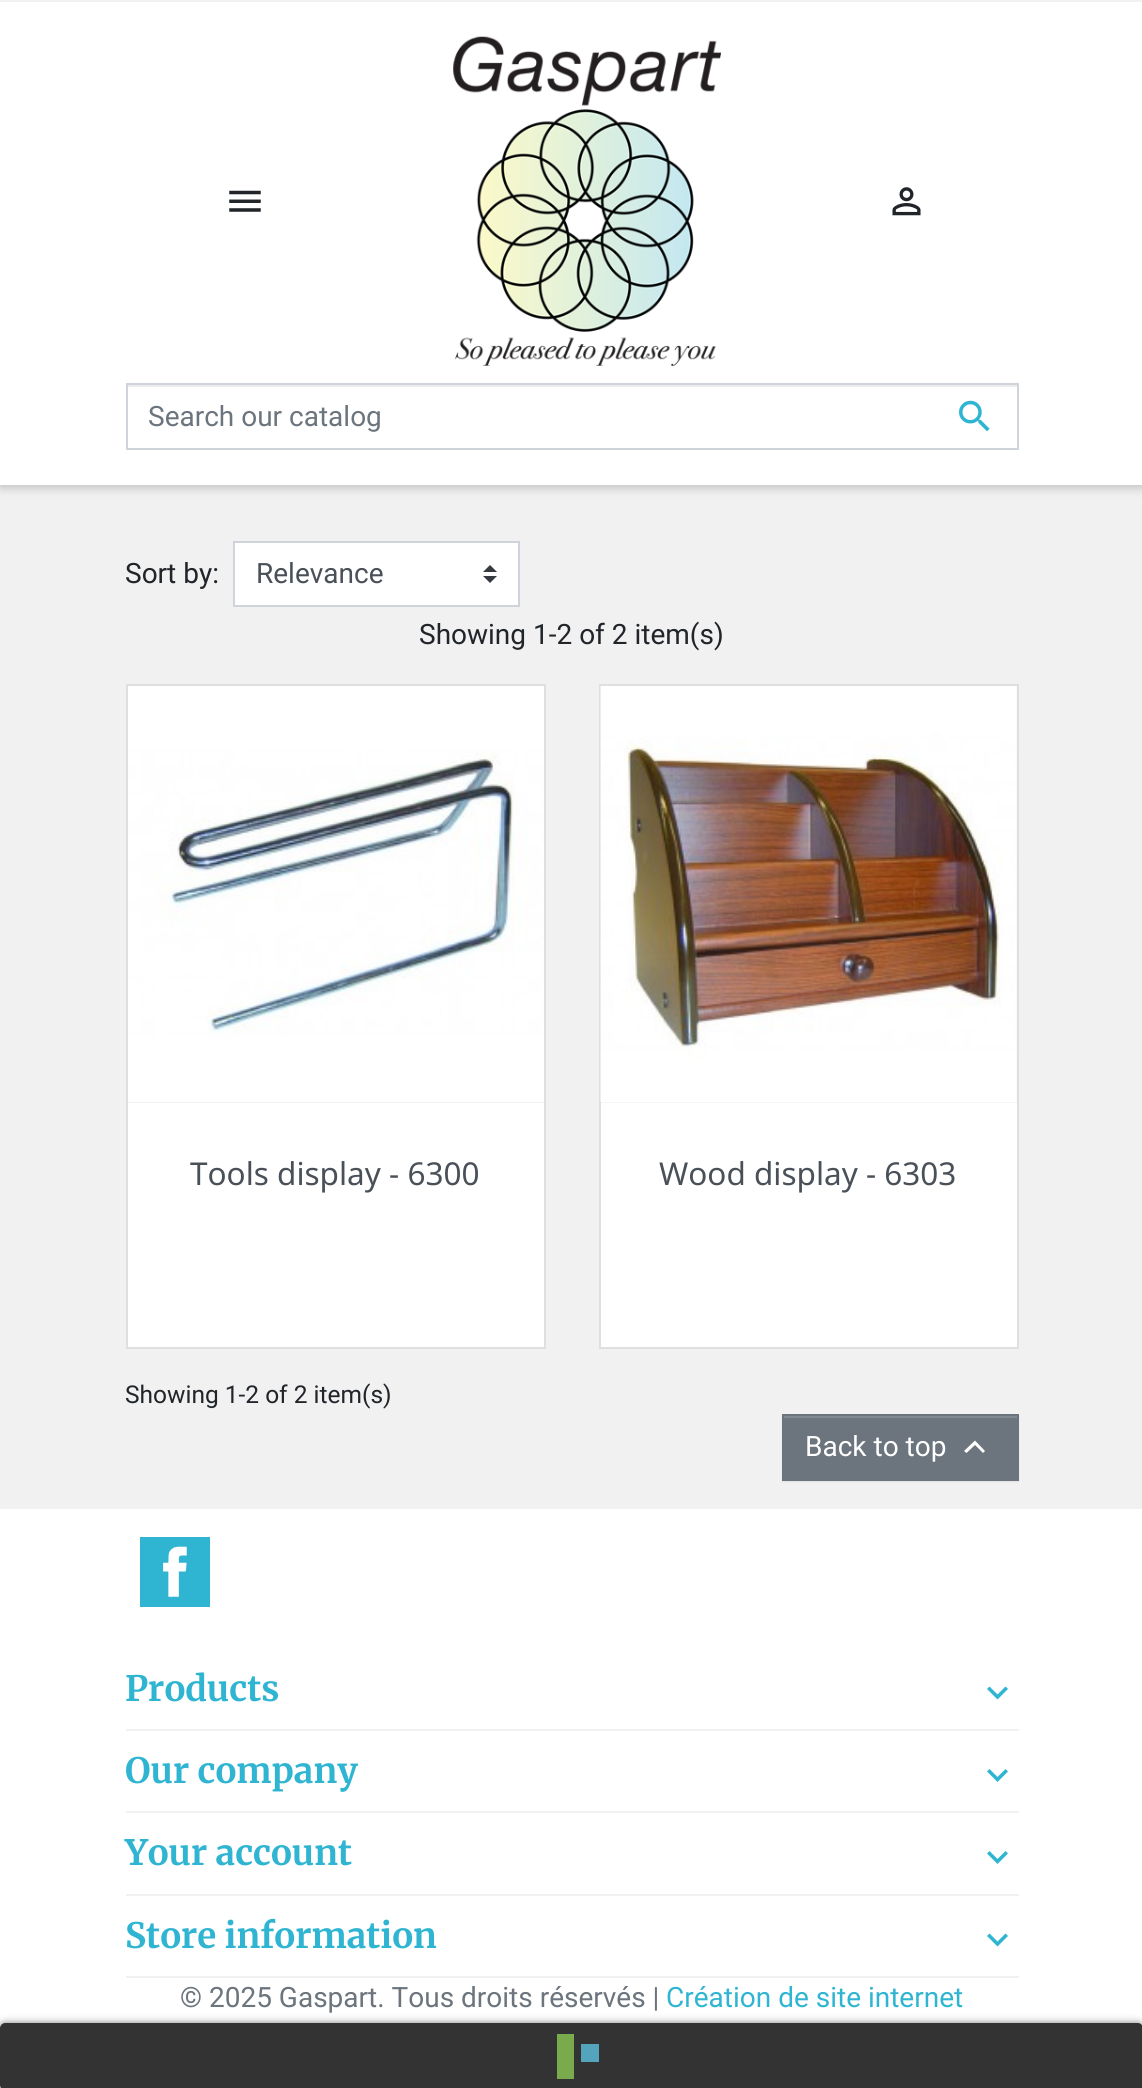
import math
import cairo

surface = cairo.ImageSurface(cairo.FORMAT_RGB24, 1142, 2088)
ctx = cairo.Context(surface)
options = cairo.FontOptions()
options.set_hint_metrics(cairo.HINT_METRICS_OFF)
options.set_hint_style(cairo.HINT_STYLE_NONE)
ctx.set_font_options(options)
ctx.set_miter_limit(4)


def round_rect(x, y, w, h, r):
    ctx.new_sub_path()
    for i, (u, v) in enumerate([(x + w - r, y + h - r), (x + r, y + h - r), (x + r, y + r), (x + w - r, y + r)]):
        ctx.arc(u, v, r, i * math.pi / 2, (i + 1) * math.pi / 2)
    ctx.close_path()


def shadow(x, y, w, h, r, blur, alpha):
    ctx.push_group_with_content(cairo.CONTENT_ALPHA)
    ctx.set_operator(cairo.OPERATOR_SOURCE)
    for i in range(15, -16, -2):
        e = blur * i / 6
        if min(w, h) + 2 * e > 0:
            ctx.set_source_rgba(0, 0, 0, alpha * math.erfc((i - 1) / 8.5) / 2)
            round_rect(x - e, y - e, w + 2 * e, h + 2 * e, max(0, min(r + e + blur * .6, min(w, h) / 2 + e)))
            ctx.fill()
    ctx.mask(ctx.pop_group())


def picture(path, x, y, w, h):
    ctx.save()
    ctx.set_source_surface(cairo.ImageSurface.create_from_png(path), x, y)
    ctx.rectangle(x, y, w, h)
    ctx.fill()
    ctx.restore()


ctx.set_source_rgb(0.945, 0.945, 0.945)
ctx.paint()
ctx.set_source_rgb(0, 0, 0)
shadow(0, 4, 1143, 484, 0, 5, 0.2)
ctx.set_source_rgb(1, 1, 1)
ctx.rectangle(0, 2, 1142, 483)
ctx.fill()
ctx.set_source_rgb(0.945, 0.945, 0.945)
ctx.rectangle(0, 0, 1142, 2)
ctx.fill()
picture("img1.png", 453, 36, 268, 330)
picture("img2.png", 892, 187, 29, 29)
ctx.set_source_rgb(1, 1, 1)
ctx.rectangle(0, 1509, 1142, 579)
ctx.fill()
ctx.save()
ctx.set_fill_rule(cairo.FILL_RULE_EVEN_ODD)
ctx.new_path()
ctx.move_to(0, 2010)
ctx.line_to(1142, 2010)
ctx.line_to(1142, 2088)
ctx.line_to(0, 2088)
ctx.close_path()
ctx.move_to(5, 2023)
ctx.line_to(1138, 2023)
ctx.curve_to(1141, 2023, 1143, 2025, 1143, 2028)
ctx.line_to(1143, 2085)
ctx.curve_to(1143, 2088, 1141, 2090, 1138, 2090)
ctx.line_to(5, 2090)
ctx.curve_to(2, 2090, 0, 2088, 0, 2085)
ctx.line_to(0, 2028)
ctx.curve_to(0, 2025, 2, 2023, 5, 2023)
ctx.close_path()
ctx.clip()
ctx.set_source_rgb(0.2, 0.2, 0.2)
shadow(0, 2025, 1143, 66, 5, 4.5, 1)
ctx.restore()
ctx.set_source_rgba(0, 0, 0, 0.8)
round_rect(1, 2024, 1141, 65, 4)
ctx.fill_preserve()
ctx.set_source_rgb(0.2, 0.2, 0.2)
ctx.stroke()
ctx.set_source_rgba(0.545, 0.788, 0.329, 0.8)
ctx.rectangle(557, 2034, 17, 45)
ctx.fill()
ctx.set_source_rgba(0.357, 0.753, 0.871, 0.8)
ctx.rectangle(581, 2044, 18, 18)
ctx.fill()
picture("img3.png", 229, 190, 32, 22)
ctx.set_source_rgb(0.925, 0.925, 0.925)
ctx.rectangle(128, 385, 889, 2)
ctx.fill()
ctx.rectangle(127, 384, 891, 65)
ctx.set_source_rgb(0.808, 0.831, 0.855)
ctx.stroke()
ctx.select_font_face("Roboto")
ctx.set_font_size(28)
ctx.set_source_rgb(0.424, 0.459, 0.49)
ctx.move_to(148, 426)
ctx.show_text("Search our catalog")
picture("img4.png", 959, 400, 31, 32)
ctx.set_source_rgb(0.129, 0.145, 0.161)
ctx.move_to(125, 583)
ctx.show_text("Sort by:")
ctx.set_source_rgb(1, 1, 1)
ctx.rectangle(235, 543, 283, 62)
ctx.fill()
ctx.set_source_rgb(0.204, 0.227, 0.251)
ctx.new_path()
ctx.move_to(490, 565)
ctx.line_to(483, 572)
ctx.line_to(497, 572)
ctx.close_path()
ctx.move_to(490, 583)
ctx.line_to(483, 576)
ctx.line_to(497, 576)
ctx.close_path()
ctx.fill()
ctx.rectangle(234, 542, 285, 64)
ctx.set_source_rgb(0.808, 0.831, 0.855)
ctx.stroke()
ctx.set_source_rgb(0.286, 0.314, 0.341)
ctx.move_to(256, 583)
ctx.show_text("Relevance")
ctx.set_source_rgb(0.129, 0.145, 0.161)
ctx.move_to(419, 644)
ctx.show_text("Showing 1-2 of 2 item(s)")
ctx.set_source_rgb(1, 1, 1)
ctx.rectangle(128, 1103, 416, 244)
ctx.fill()
ctx.rectangle(127, 685, 418, 663)
ctx.set_source_rgb(0.875, 0.875, 0.875)
ctx.stroke()
picture("img5.png", 128, 686, 416, 416)
ctx.select_font_face("Noto Sans")
ctx.set_font_size(31.5)
ctx.set_source_rgb(0.286, 0.314, 0.341)
ctx.move_to(190, 1185)
ctx.show_text("Tools display - 6300")
ctx.set_source_rgb(1, 1, 1)
ctx.rectangle(600, 685, 418, 663)
ctx.fill_preserve()
ctx.set_source_rgb(0.875, 0.875, 0.875)
ctx.stroke()
ctx.set_source_rgba(0, 0, 0, 0.05)
ctx.rectangle(600, 686, 417, 417)
ctx.fill()
picture("img6.png", 600, 686, 417, 417)
ctx.set_source_rgb(0.286, 0.314, 0.341)
ctx.move_to(659, 1185)
ctx.show_text("Wood display - 6303")
ctx.select_font_face("Roboto")
ctx.set_font_size(24.5)
ctx.set_source_rgb(0.129, 0.145, 0.161)
ctx.move_to(125, 1403)
ctx.show_text("Showing 1-2 of 2 item(s)")
ctx.set_source_rgb(0, 0, 0)
shadow(782, 1416, 237, 66, 0, 1, 0.07)
ctx.set_source_rgb(0.424, 0.459, 0.49)
ctx.rectangle(782, 1414, 237, 67)
ctx.fill()
ctx.set_source_rgb(0.51, 0.541, 0.569)
ctx.rectangle(784, 1416, 233, 2)
ctx.fill()
ctx.set_font_size(28)
ctx.set_source_rgb(1, 1, 1)
ctx.move_to(805, 1456)
ctx.show_text("Back to top")
ctx.new_path()
ctx.move_to(966.5, 1453)
ctx.line_to(964, 1451)
ctx.line_to(975, 1440.5)
ctx.line_to(985, 1451)
ctx.line_to(983, 1453)
ctx.line_to(975, 1445)
ctx.close_path()
ctx.fill()
ctx.set_source_rgb(0.184, 0.71, 0.824)
ctx.rectangle(140, 1537, 70, 70)
ctx.fill()
picture("img7.png", 163, 1546, 24, 51)
ctx.set_source_rgb(0.945, 0.945, 0.945)
ctx.rectangle(126, 1729, 893, 2)
ctx.fill()
ctx.select_font_face("Merriweather", cairo.FONT_SLANT_NORMAL, cairo.FONT_WEIGHT_BOLD)
ctx.set_font_size(35)
ctx.set_source_rgb(0.184, 0.71, 0.824)
ctx.move_to(125, 1701)
ctx.show_text("Products")
ctx.new_path()
ctx.move_to(989.5, 1686.5)
ctx.line_to(997.5, 1694.5)
ctx.line_to(1005.5, 1686.5)
ctx.line_to(1008, 1689)
ctx.line_to(997.5, 1699.5)
ctx.line_to(987, 1689)
ctx.close_path()
ctx.fill()
ctx.set_source_rgb(0.945, 0.945, 0.945)
ctx.rectangle(126, 1811, 893, 2)
ctx.fill()
ctx.set_source_rgb(0.184, 0.71, 0.824)
ctx.move_to(125, 1783)
ctx.show_text("Our company")
ctx.new_path()
ctx.move_to(989.5, 1769)
ctx.line_to(997.5, 1777)
ctx.line_to(1005.5, 1769)
ctx.line_to(1008, 1771.5)
ctx.line_to(997.5, 1782)
ctx.line_to(987, 1771.5)
ctx.close_path()
ctx.fill()
ctx.set_source_rgb(0.945, 0.945, 0.945)
ctx.rectangle(126, 1894, 893, 2)
ctx.fill()
ctx.set_source_rgb(0.184, 0.71, 0.824)
ctx.move_to(125, 1865)
ctx.show_text("Your account")
ctx.new_path()
ctx.move_to(989.5, 1851)
ctx.line_to(997.5, 1859)
ctx.line_to(1005.5, 1851)
ctx.line_to(1008, 1853.5)
ctx.line_to(997.5, 1864)
ctx.line_to(987, 1853.5)
ctx.close_path()
ctx.fill()
ctx.set_source_rgb(0.945, 0.945, 0.945)
ctx.rectangle(126, 1976, 893, 2)
ctx.fill()
ctx.set_source_rgb(0.184, 0.71, 0.824)
ctx.move_to(125, 1948)
ctx.show_text("Store information")
ctx.new_path()
ctx.move_to(989.5, 1933.5)
ctx.line_to(997.5, 1941.5)
ctx.line_to(1005.5, 1933.5)
ctx.line_to(1008, 1936)
ctx.line_to(997.5, 1946.5)
ctx.line_to(987, 1936)
ctx.close_path()
ctx.fill()
ctx.select_font_face("Roboto")
ctx.set_font_size(28)
ctx.set_source_rgb(0.424, 0.459, 0.49)
ctx.move_to(180, 2007)
ctx.show_text("© 2025 Gaspart. Tous droits réservés |")
ctx.set_source_rgb(0.184, 0.71, 0.824)
ctx.move_to(666, 2007)
ctx.show_text("Création de site internet")
surface.write_to_png("page.png")
